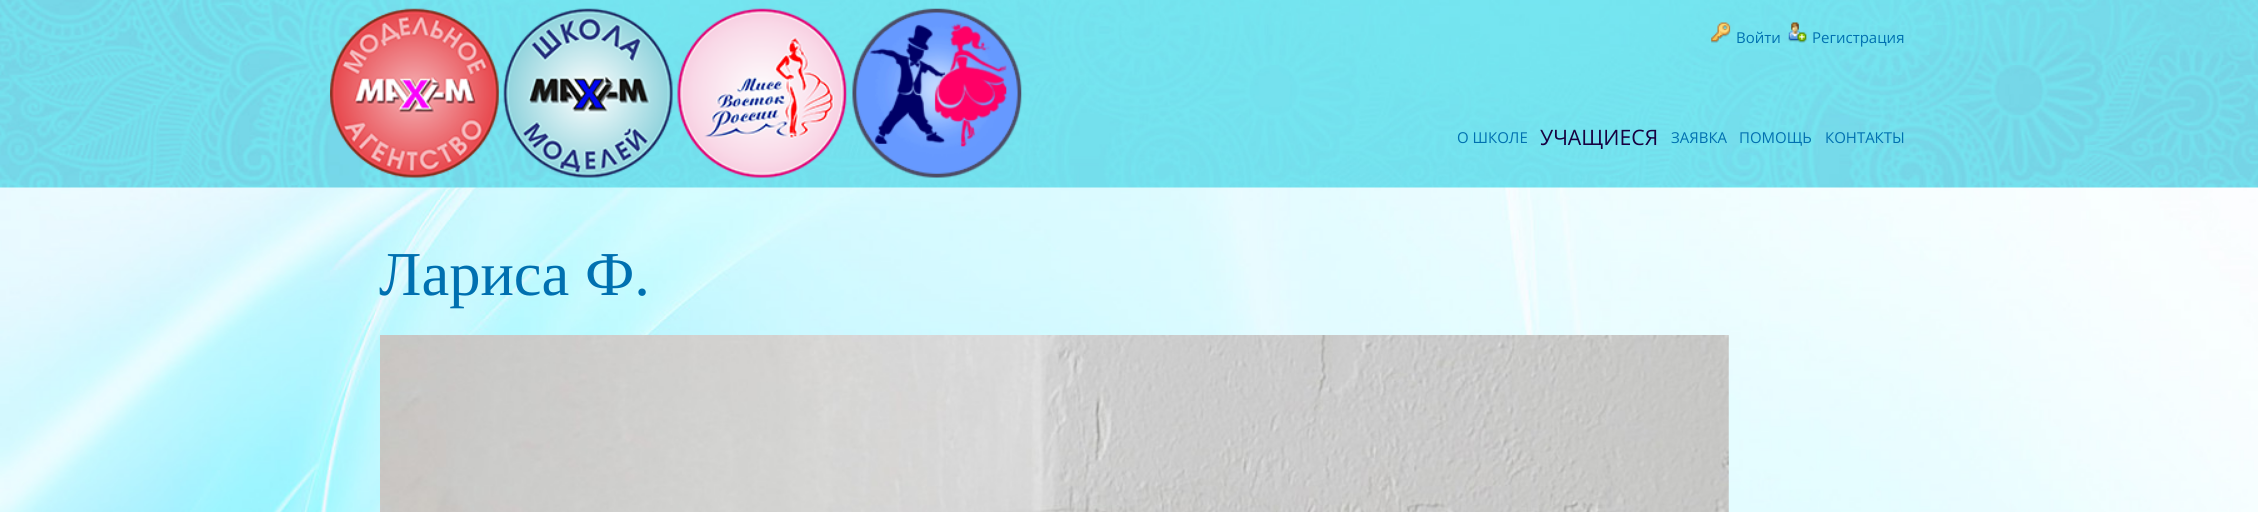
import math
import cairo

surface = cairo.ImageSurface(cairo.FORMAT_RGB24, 2258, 512)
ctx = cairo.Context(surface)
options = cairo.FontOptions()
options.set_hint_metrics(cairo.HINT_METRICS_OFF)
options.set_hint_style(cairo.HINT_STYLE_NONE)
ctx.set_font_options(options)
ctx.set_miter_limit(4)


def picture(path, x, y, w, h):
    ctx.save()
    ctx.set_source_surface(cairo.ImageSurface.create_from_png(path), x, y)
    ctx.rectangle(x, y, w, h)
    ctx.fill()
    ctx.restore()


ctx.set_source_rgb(1, 1, 1)
ctx.paint()
picture("img1.png", 0, 187, 2258, 325)
picture("img2.png", 0, 0, 2258, 188)
picture("img3.png", 330, 8, 169, 170)
picture("img4.png", 503, 8, 170, 170)
picture("img5.png", 677, 8, 170, 170)
picture("img6.png", 852, 8, 170, 170)
picture("img7.png", 1711, 22, 20, 21)
ctx.select_font_face("Open Sans")
ctx.set_font_size(15)
ctx.set_source_rgb(0, 0.439, 0.69)
ctx.move_to(1736, 43)
ctx.show_text("Войти")
picture("img8.png", 1788, 22, 19, 21)
ctx.move_to(1812, 43)
ctx.show_text("Регистрация")
ctx.move_to(1457, 143)
ctx.show_text("О ШКОЛЕ")
ctx.set_font_size(21.25)
ctx.set_source_rgb(0.09, 0, 0.251)
ctx.move_to(1540, 145)
ctx.show_text("УЧАЩИЕСЯ")
ctx.set_font_size(15)
ctx.set_source_rgb(0, 0.439, 0.69)
ctx.move_to(1671, 143)
ctx.show_text("ЗАЯВКА")
ctx.move_to(1739, 143)
ctx.show_text("ПОМОЩЬ")
ctx.move_to(1825, 143)
ctx.show_text("КОНТАКТЫ")
ctx.select_font_face("Liberation Serif")
ctx.set_font_size(62.5)
ctx.move_to(379, 295)
ctx.show_text("Лариса Ф.")
picture("img9.png", 380, 335, 1349, 177)
surface.write_to_png("page.png")
